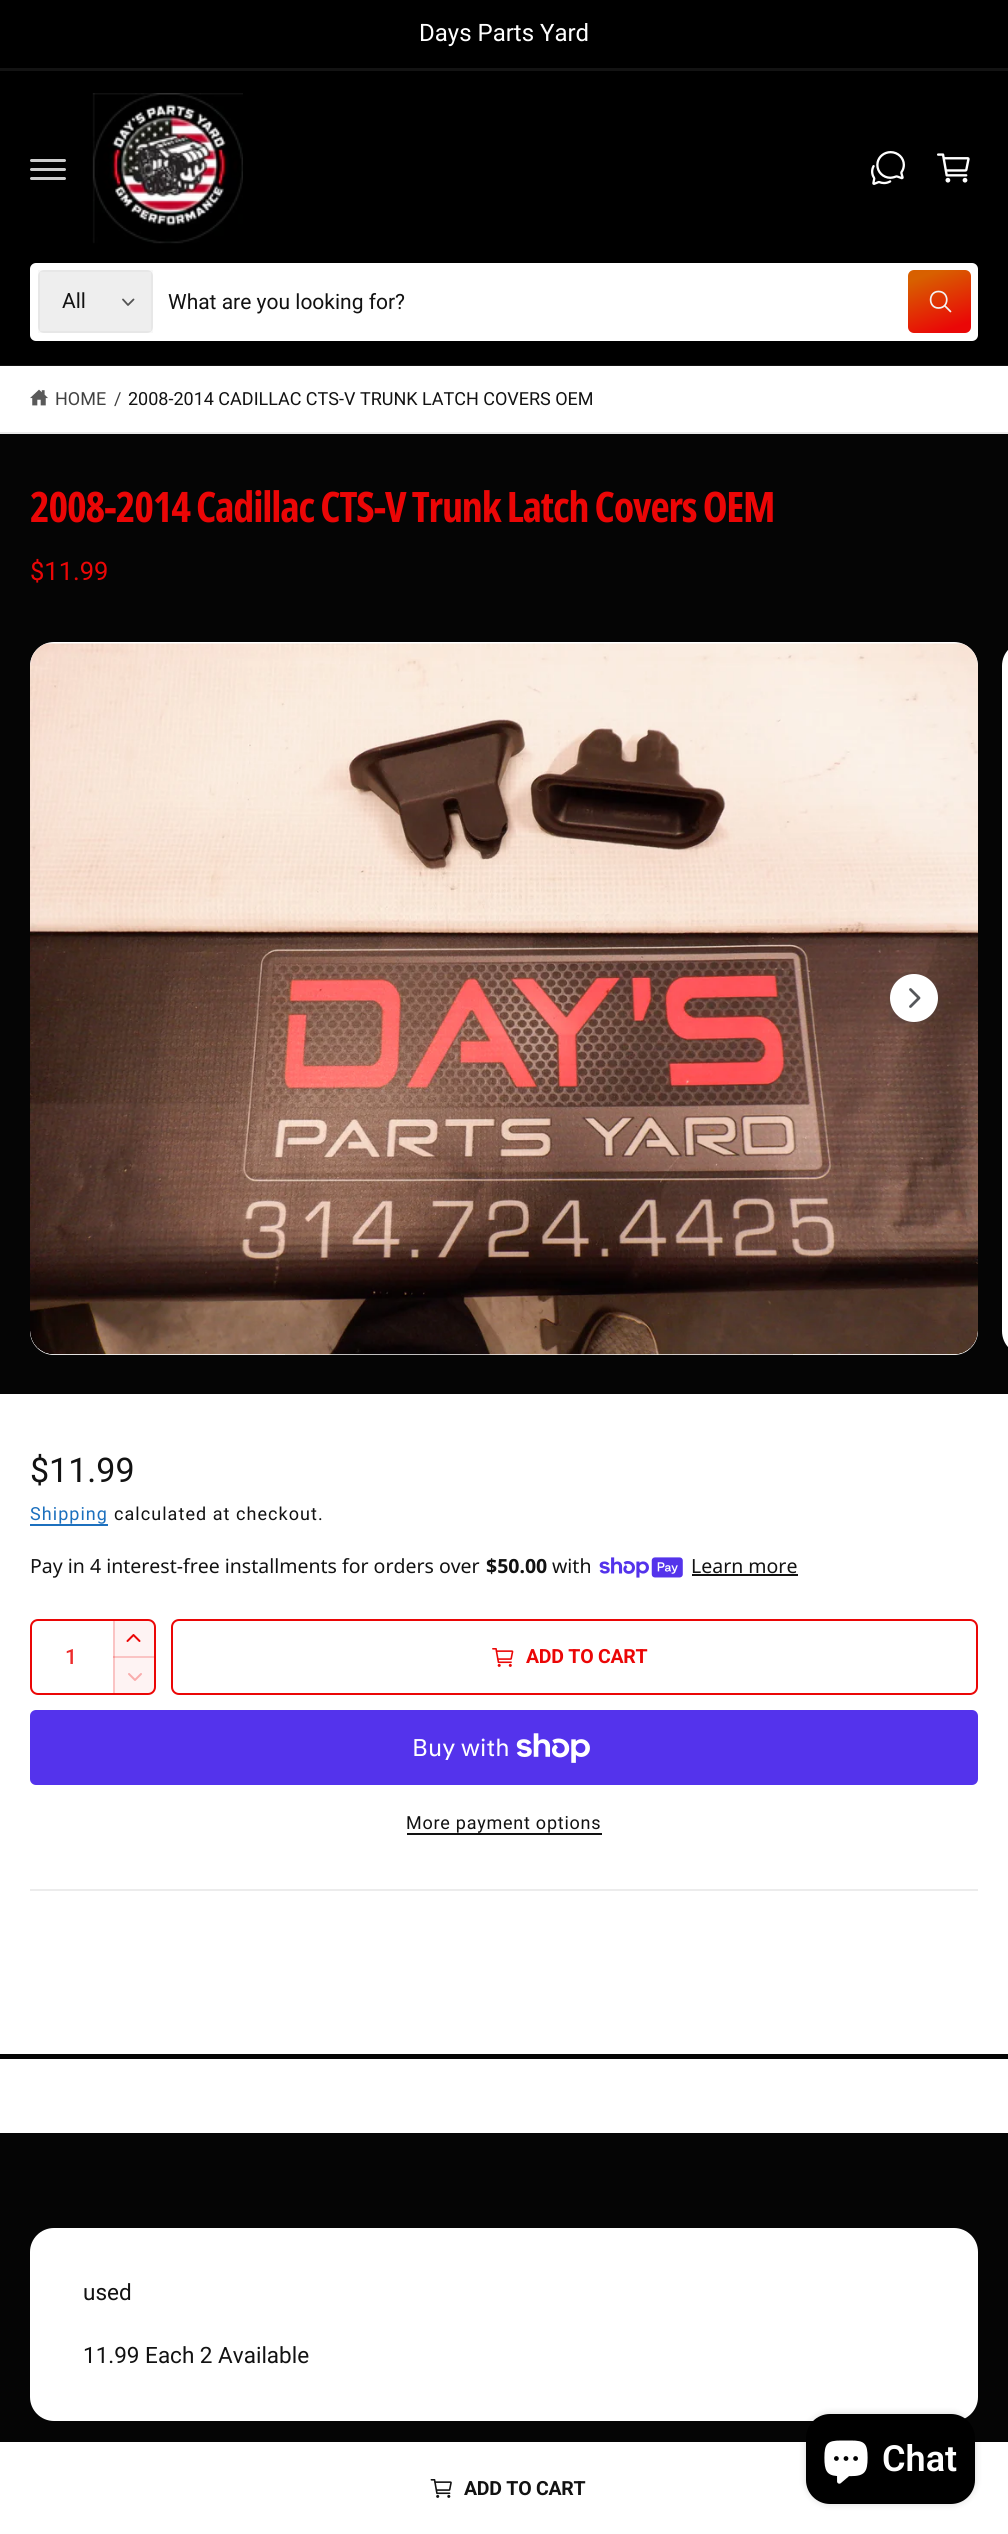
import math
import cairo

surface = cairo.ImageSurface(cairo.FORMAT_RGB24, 1008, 2534)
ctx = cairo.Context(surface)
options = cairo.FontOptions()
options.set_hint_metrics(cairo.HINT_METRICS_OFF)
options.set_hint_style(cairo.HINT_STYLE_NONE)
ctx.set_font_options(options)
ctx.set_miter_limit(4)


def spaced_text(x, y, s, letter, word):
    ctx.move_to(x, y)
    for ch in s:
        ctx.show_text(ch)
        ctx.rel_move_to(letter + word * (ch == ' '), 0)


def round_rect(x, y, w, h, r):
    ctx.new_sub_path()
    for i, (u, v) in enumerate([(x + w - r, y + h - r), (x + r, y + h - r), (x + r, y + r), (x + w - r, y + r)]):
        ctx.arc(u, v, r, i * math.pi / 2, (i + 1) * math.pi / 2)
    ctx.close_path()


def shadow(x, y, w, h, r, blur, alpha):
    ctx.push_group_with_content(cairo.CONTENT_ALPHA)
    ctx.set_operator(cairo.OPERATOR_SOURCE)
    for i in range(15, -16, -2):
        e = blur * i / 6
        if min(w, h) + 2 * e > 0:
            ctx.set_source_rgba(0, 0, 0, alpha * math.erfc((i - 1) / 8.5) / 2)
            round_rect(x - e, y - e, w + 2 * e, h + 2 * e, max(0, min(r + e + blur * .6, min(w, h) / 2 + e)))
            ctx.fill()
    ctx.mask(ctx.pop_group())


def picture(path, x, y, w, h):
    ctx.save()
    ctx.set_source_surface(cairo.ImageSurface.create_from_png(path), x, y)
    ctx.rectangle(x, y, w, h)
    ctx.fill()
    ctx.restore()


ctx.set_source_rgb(0.02, 0.02, 0.02)
ctx.paint()
ctx.set_source_rgb(0, 0, 0)
ctx.rectangle(0, 0, 1008, 68)
ctx.fill()
ctx.set_source_rgb(0.078, 0.078, 0.078)
ctx.rectangle(0, 68, 1008, 3)
ctx.fill()
ctx.select_font_face("Roboto")
ctx.set_font_size(24)
ctx.set_source_rgb(1, 1, 1)
ctx.move_to(419, 41)
ctx.show_text("Days Parts Yard")
ctx.set_source_rgb(0, 0, 0)
ctx.rectangle(0, 71, 1008, 294)
ctx.fill()
ctx.set_source_rgb(0.078, 0.078, 0.078)
ctx.rectangle(0, 365, 1008, 1)
ctx.fill()
ctx.new_path()
ctx.move_to(31.5, 160.5)
ctx.line_to(64.5, 160.5)
ctx.move_to(31.5, 169.5)
ctx.line_to(64.5, 169.5)
ctx.move_to(31.5, 178.5)
ctx.line_to(64.5, 178.5)
ctx.set_source_rgb(0.8, 0.8, 0.8)
ctx.set_line_width(3)
ctx.set_line_cap(cairo.LINE_CAP_ROUND)
ctx.stroke()
picture("img1.png", 92, 93, 151, 151)
picture("img2.png", 871, 151, 34, 34)
picture("img3.png", 937, 153, 33, 30)
ctx.set_source_rgb(1, 1, 1)
round_rect(30, 263, 948, 78, 6)
ctx.fill()
ctx.set_source_rgb(0.933, 0.933, 0.933)
round_rect(38, 270, 115, 63, 6)
ctx.fill()
ctx.rectangle(39, 271, 113, 61)
ctx.set_source_rgba(0.071, 0.071, 0.071, 0.03)
ctx.set_line_width(2)
ctx.set_line_cap(cairo.LINE_CAP_BUTT)
ctx.stroke()
ctx.set_font_size(21)
ctx.set_source_rgb(0.071, 0.071, 0.071)
ctx.move_to(62, 308)
ctx.show_text("All")
ctx.new_path()
ctx.move_to(123, 299.5)
ctx.line_to(128, 305)
ctx.line_to(133.5, 299.5)
ctx.set_source_rgb(0.329, 0.329, 0.329)
ctx.set_line_width(1.8)
ctx.set_line_cap(cairo.LINE_CAP_ROUND)
ctx.set_line_join(cairo.LINE_JOIN_ROUND)
ctx.stroke()
ctx.set_source_rgb(0.071, 0.071, 0.071)
ctx.move_to(168, 309)
ctx.show_text("What are you looking for?")
gradient = cairo.LinearGradient(953, 339, 925, 264)
gradient.add_color_stop_rgba(0.13, 0.918, 0.027, 0.027, 1)
gradient.add_color_stop_rgba(0.86, 0.847, 0.376, 0, 1)
ctx.set_source(gradient)
round_rect(908, 270, 63, 63, 6)
ctx.fill()
ctx.new_path()
ctx.move_to(938.5, 291.5)
ctx.curve_to(928, 291.5, 928, 308, 938.5, 308)
ctx.curve_to(949.5, 308, 949.5, 291.5, 938.5, 291.5)
ctx.close_path()
ctx.set_source_rgb(0.953, 0.953, 0.953)
ctx.set_line_width(1.7)
ctx.set_line_cap(cairo.LINE_CAP_BUTT)
ctx.set_line_join(cairo.LINE_JOIN_MITER)
ctx.stroke()
ctx.new_path()
ctx.move_to(945, 306)
ctx.line_to(950.5, 311.5)
ctx.set_line_cap(cairo.LINE_CAP_ROUND)
ctx.stroke()
ctx.set_source_rgb(1, 1, 1)
ctx.rectangle(0, 366, 1008, 66)
ctx.fill()
ctx.set_source_rgb(0.925, 0.925, 0.925)
ctx.rectangle(0, 432, 1008, 2)
ctx.fill()
picture("img4.png", 30, 389, 18, 17)
ctx.set_font_size(18)
ctx.set_source_rgb(0.255, 0.255, 0.255)
ctx.move_to(55, 405)
ctx.show_text("HOME")
ctx.move_to(114, 405)
ctx.show_text("/")
ctx.set_source_rgb(0.071, 0.071, 0.071)
ctx.move_to(128, 405)
ctx.show_text("2008-2014 CADILLAC CTS-V TRUNK LATCH COVERS OEM")
ctx.select_font_face("Open Sans Condensed", cairo.FONT_SLANT_NORMAL, cairo.FONT_WEIGHT_BOLD)
ctx.set_font_size(42)
ctx.set_source_rgb(0.918, 0.027, 0.027)
spaced_text(30, 522, "2008-2014 Cadillac CTS-V Trunk Latch Covers OEM", -1.2, 0)
ctx.select_font_face("Roboto")
ctx.set_font_size(25.5)
ctx.move_to(30, 580)
ctx.show_text("$11.99")
ctx.set_source_rgb(1, 1, 1)
round_rect(30, 642, 948, 713, 24)
ctx.fill()
picture("img5.png", 30, 643, 948, 712)
ctx.new_path()
ctx.move_to(1026, 642)
ctx.line_to(1008, 642)
ctx.line_to(1008, 1355)
ctx.line_to(1026, 1355)
ctx.curve_to(1012.5, 1355, 1002, 1344.5, 1002, 1331)
ctx.line_to(1002, 666)
ctx.curve_to(1002, 652.5, 1012.5, 642, 1026, 642)
ctx.close_path()
ctx.fill()
ctx.set_source_rgb(0.235, 0.251, 0.263)
shadow(888, 974, 51, 51, 25.5, 2, 0.15)
ctx.set_source_rgb(1, 1, 1)
ctx.arc(914, 998, 24, 0, 2 * math.pi)
ctx.fill()
ctx.new_path()
ctx.move_to(910.5, 1006.5)
ctx.line_to(919, 998)
ctx.line_to(910.5, 989.5)
ctx.set_source_rgb(0.337, 0.345, 0.357)
ctx.set_line_width(2.8)
ctx.set_line_join(cairo.LINE_JOIN_ROUND)
ctx.stroke()
ctx.set_source_rgb(1, 1, 1)
ctx.rectangle(0, 1394, 1008, 739)
ctx.fill()
ctx.set_font_size(34)
ctx.set_source_rgb(0.071, 0.071, 0.071)
ctx.move_to(30, 1482)
ctx.show_text("$11.99")
ctx.set_font_size(18)
ctx.set_source_rgb(0.11, 0.439, 0.745)
spaced_text(30, 1520, "Shipping", 1.05, 0)
ctx.rectangle(30, 1524, 78, 2)
ctx.fill()
ctx.set_source_rgb(0.071, 0.071, 0.071)
spaced_text(114, 1520, "calculated at checkout.", 1.05, 0)
ctx.select_font_face("Noto Sans")
ctx.set_font_size(19.5)
ctx.move_to(30, 1573)
ctx.show_text("Pay in 4 interest-free installments for orders over")
ctx.select_font_face("Noto Sans", cairo.FONT_SLANT_NORMAL, cairo.FONT_WEIGHT_BOLD)
ctx.move_to(486, 1573)
ctx.show_text("$50.00")
ctx.select_font_face("Noto Sans")
ctx.move_to(552, 1573)
ctx.show_text("with")
picture("img6.png", 599, 1557, 84, 21)
ctx.move_to(691, 1573)
ctx.show_text("Learn more")
ctx.rectangle(692, 1574, 106, 2)
ctx.fill()
ctx.set_source_rgb(0.996, 0.953, 0.953)
ctx.new_path()
ctx.move_to(113, 1619)
ctx.line_to(149, 1619)
ctx.curve_to(152.5, 1619, 155, 1621.5, 155, 1625)
ctx.line_to(155, 1658)
ctx.line_to(113, 1658)
ctx.close_path()
ctx.fill()
ctx.set_source_rgb(0.98, 0.769, 0.769)
ctx.rectangle(113, 1619, 2, 39)
ctx.fill()
ctx.rectangle(113, 1656, 42, 2)
ctx.fill()
ctx.set_source_rgb(0.969, 0.62, 0.62)
ctx.rectangle(113, 1656, 2, 2)
ctx.fill()
ctx.new_path()
ctx.move_to(139.5, 1641)
ctx.line_to(133.5, 1635)
ctx.line_to(127.5, 1641)
ctx.set_source_rgb(0.918, 0.027, 0.027)
ctx.set_line_width(2)
ctx.stroke()
ctx.set_source_rgb(0.996, 0.953, 0.953)
ctx.new_path()
ctx.move_to(113, 1658)
ctx.line_to(155, 1658)
ctx.line_to(155, 1689)
ctx.curve_to(155, 1692.5, 152.5, 1695, 149, 1695)
ctx.line_to(113, 1695)
ctx.close_path()
ctx.fill()
ctx.set_source_rgb(0.98, 0.769, 0.769)
ctx.rectangle(113, 1658, 2, 37)
ctx.fill()
ctx.new_path()
ctx.move_to(129, 1674)
ctx.line_to(135, 1680)
ctx.line_to(141, 1674)
ctx.set_source_rgb(0.973, 0.675, 0.675)
ctx.stroke()
round_rect(31, 1620, 124, 74, 7)
ctx.set_source_rgb(1, 1, 1)
ctx.set_line_cap(cairo.LINE_CAP_BUTT)
ctx.set_line_join(cairo.LINE_JOIN_MITER)
ctx.stroke()
round_rect(31, 1620, 124, 74, 7)
ctx.set_source_rgb(0.918, 0.027, 0.027)
ctx.stroke()
ctx.select_font_face("Roboto Medium")
ctx.set_font_size(21)
ctx.set_source_rgb(0.929, 0.173, 0.173)
ctx.move_to(65, 1664)
ctx.show_text("1")
picture("img7.png", 492, 1648, 22, 19)
round_rect(172, 1620, 805, 74, 7)
ctx.set_source_rgb(0.918, 0.027, 0.027)
ctx.stroke()
ctx.select_font_face("Roboto", cairo.FONT_SLANT_NORMAL, cairo.FONT_WEIGHT_BOLD)
ctx.set_font_size(19.5)
spaced_text(526, 1663, "ADD TO CART", -0.25, 0)
ctx.set_source_rgb(0.329, 0.2, 0.922)
round_rect(30, 1710, 948, 75, 6)
ctx.fill()
ctx.select_font_face("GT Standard")
ctx.set_font_size(24)
ctx.set_source_rgb(1, 1, 1)
ctx.move_to(412, 1756)
ctx.show_text("Buy with")
picture("img8.png", 516, 1733, 74, 30)
ctx.select_font_face("Roboto")
ctx.set_font_size(18)
ctx.set_source_rgb(0.071, 0.071, 0.071)
spaced_text(406, 1829, "More payment options", 0.75, 0)
ctx.rectangle(407, 1833, 195, 2)
ctx.fill()
ctx.set_source_rgb(0.925, 0.925, 0.925)
ctx.rectangle(30, 1889, 948, 2)
ctx.fill()
ctx.set_source_rgb(0.02, 0.02, 0.02)
ctx.rectangle(0, 2054, 1008, 5)
ctx.fill()
ctx.set_source_rgb(1, 1, 1)
round_rect(30, 2228, 948, 193, 24)
ctx.fill()
ctx.set_font_size(22.5)
ctx.set_source_rgb(0.071, 0.071, 0.071)
ctx.move_to(83, 2300)
ctx.show_text("used")
ctx.move_to(83, 2363)
ctx.show_text("11.99 Each 2 Available")
ctx.set_source_rgb(1, 1, 1)
ctx.rectangle(0, 2442, 1008, 92)
ctx.fill()
picture("img9.png", 430, 2479, 22, 19)
ctx.select_font_face("Roboto", cairo.FONT_SLANT_NORMAL, cairo.FONT_WEIGHT_BOLD)
ctx.set_font_size(19.5)
ctx.set_source_rgb(0.071, 0.071, 0.071)
spaced_text(464, 2495, "ADD TO CART", -0.25, 0)
ctx.set_source_rgb(0, 0, 0)
shadow(806, 2414, 169, 90, 24, 4, 0.15)
ctx.set_source_rgb(0, 0, 0)
round_rect(806, 2414, 169, 90, 24)
ctx.fill()
picture("img10.png", 824, 2440, 44, 44)
ctx.select_font_face("Roboto SemiBold")
ctx.set_font_size(36)
ctx.set_source_rgb(1, 1, 1)
ctx.move_to(882, 2471)
ctx.show_text("Chat")
surface.write_to_png("page.png")
